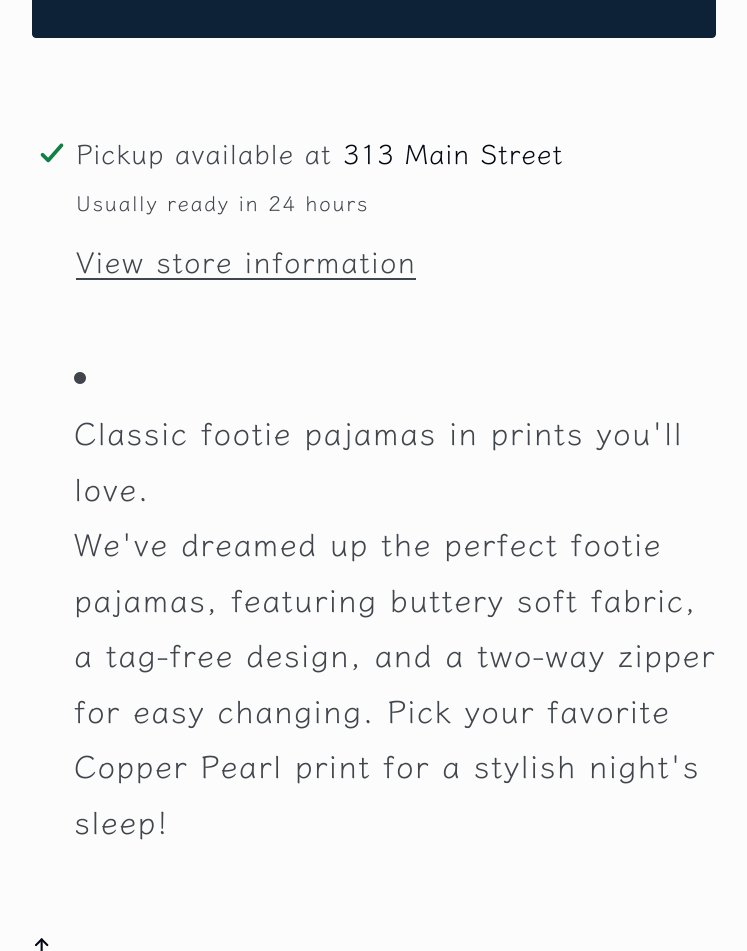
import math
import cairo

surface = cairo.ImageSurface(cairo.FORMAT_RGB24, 747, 951)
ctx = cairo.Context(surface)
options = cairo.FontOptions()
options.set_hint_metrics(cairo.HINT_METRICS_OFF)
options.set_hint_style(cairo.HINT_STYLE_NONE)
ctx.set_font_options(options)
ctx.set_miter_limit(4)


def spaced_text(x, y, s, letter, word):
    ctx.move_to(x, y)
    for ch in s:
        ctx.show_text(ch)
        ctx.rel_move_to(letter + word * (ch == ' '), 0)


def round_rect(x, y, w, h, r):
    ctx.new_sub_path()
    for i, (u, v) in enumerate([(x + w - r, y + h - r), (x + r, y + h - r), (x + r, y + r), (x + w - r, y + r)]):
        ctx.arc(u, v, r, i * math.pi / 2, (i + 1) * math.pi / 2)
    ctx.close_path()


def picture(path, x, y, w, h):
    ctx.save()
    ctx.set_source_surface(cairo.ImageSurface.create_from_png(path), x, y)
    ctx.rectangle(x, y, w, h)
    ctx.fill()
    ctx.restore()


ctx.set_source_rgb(0.988, 0.988, 0.988)
ctx.paint()
ctx.set_source_rgb(0.051, 0.133, 0.212)
round_rect(33, -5, 682, 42, 3)
ctx.fill_preserve()
ctx.stroke()
picture("img1.png", 40, 143, 24, 20)
ctx.select_font_face("Klee One")
ctx.set_font_size(27.25)
ctx.set_source_rgb(0.255, 0.275, 0.302)
spaced_text(76, 164, "Pickup available at", 0.8, 0)
ctx.set_source_rgb(0.008, 0.035, 0.071)
spaced_text(343, 164, "313 Main Street", 0.8, 0)
ctx.set_font_size(21)
ctx.set_source_rgb(0.255, 0.275, 0.302)
spaced_text(76, 211, "Usually ready in 24 hours", 1.5, 0)
ctx.set_font_size(29.4)
spaced_text(76, 273, "View store information", 1.25, 0)
ctx.rectangle(76, 278, 340, 2)
ctx.fill()
ctx.arc(80, 378, 6, 0, 2 * math.pi)
ctx.fill()
ctx.set_font_size(31.5)
spaced_text(74, 445, "Classic footie pajamas in prints you'll", 1.25, 0)
spaced_text(74, 501, "love.", 1.25, 0)
spaced_text(74, 556, "We've dreamed up the perfect footie", 1.25, 0)
spaced_text(74, 612, "pajamas, featuring buttery soft fabric,", 1.25, 0)
spaced_text(74, 667, "a tag-free design, and a two-way zipper", 1.25, 0)
spaced_text(74, 723, "for easy changing. Pick your favorite", 1.25, 0)
spaced_text(74, 778, "Copper Pearl print for a stylish night's", 1.25, 0)
spaced_text(74, 834, "sleep!", 1.25, 0)
picture("img2.png", 34, 938, 15, 13)
surface.write_to_png("page.png")
